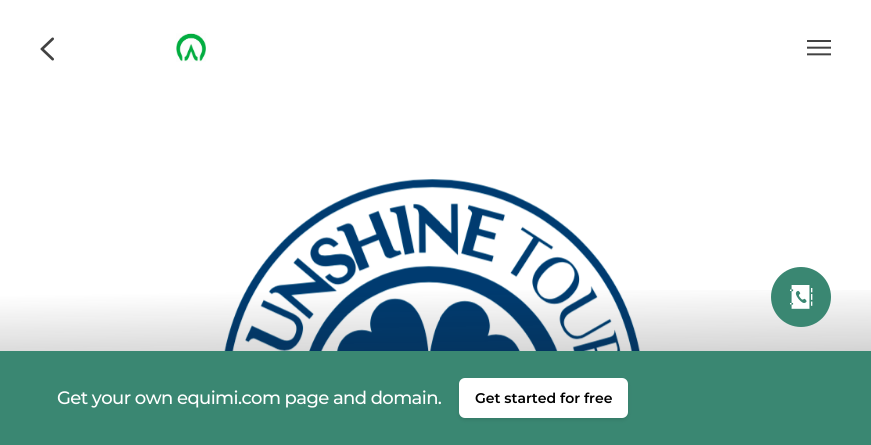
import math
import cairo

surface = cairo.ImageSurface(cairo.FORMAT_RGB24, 871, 445)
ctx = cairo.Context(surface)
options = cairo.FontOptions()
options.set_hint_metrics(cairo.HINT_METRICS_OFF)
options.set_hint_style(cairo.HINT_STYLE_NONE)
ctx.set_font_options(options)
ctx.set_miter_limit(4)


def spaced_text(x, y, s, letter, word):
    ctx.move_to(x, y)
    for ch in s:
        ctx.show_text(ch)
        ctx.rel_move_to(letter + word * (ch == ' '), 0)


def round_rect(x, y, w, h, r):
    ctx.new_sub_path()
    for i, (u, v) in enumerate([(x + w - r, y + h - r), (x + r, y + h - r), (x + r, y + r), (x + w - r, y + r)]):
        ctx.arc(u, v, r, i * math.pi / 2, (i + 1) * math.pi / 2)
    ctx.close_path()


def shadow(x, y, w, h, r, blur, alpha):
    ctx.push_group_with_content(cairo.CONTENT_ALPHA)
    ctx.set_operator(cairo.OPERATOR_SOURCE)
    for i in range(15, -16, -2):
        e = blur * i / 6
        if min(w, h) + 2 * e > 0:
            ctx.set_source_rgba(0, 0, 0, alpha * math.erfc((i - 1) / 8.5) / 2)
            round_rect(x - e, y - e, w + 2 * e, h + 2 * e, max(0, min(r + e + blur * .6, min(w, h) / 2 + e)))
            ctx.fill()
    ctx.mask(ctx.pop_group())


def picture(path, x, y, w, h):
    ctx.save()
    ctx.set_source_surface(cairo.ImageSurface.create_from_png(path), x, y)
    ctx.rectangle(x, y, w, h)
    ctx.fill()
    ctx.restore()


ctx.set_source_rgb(1, 1, 1)
ctx.paint()
picture("img1.png", 40, 37, 14, 24)
picture("img2.png", 176, 33, 30, 29)
picture("img3.png", 807, 40, 24, 16)
picture("img4.png", 220, 179, 424, 172)
gradient = cairo.LinearGradient(431, 90, 440, 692)
gradient.add_color_stop_rgba(0.33, 0.094, 0.094, 0.094, 0)
gradient.add_color_stop_rgba(0.94, 0.094, 0.094, 0.094, 1)
ctx.set_source(gradient)
ctx.rectangle(0, 290, 871, 61)
ctx.fill()
ctx.set_source_rgb(0.227, 0.529, 0.447)
ctx.arc(801, 297, 30, 0, 2 * math.pi)
ctx.fill()
picture("img5.png", 790, 285, 23, 24)
ctx.rectangle(0, 351, 871, 94)
ctx.fill()
ctx.select_font_face("Montserrat Medium")
ctx.set_font_size(18)
ctx.set_source_rgb(1, 1, 1)
spaced_text(57, 404, "Get your own equimi.com page and domain.", -0.6, 0)
ctx.set_source_rgb(0, 0, 0)
shadow(459, 380, 169, 40, 6, 2, 0.1)
ctx.set_source_rgb(1, 1, 1)
round_rect(459, 378, 169, 40, 6)
ctx.fill()
ctx.select_font_face("Montserrat SemiBold")
ctx.set_font_size(14)
ctx.set_source_rgb(0, 0, 0)
ctx.move_to(475, 403)
ctx.show_text("Get started for free")
surface.write_to_png("page.png")
